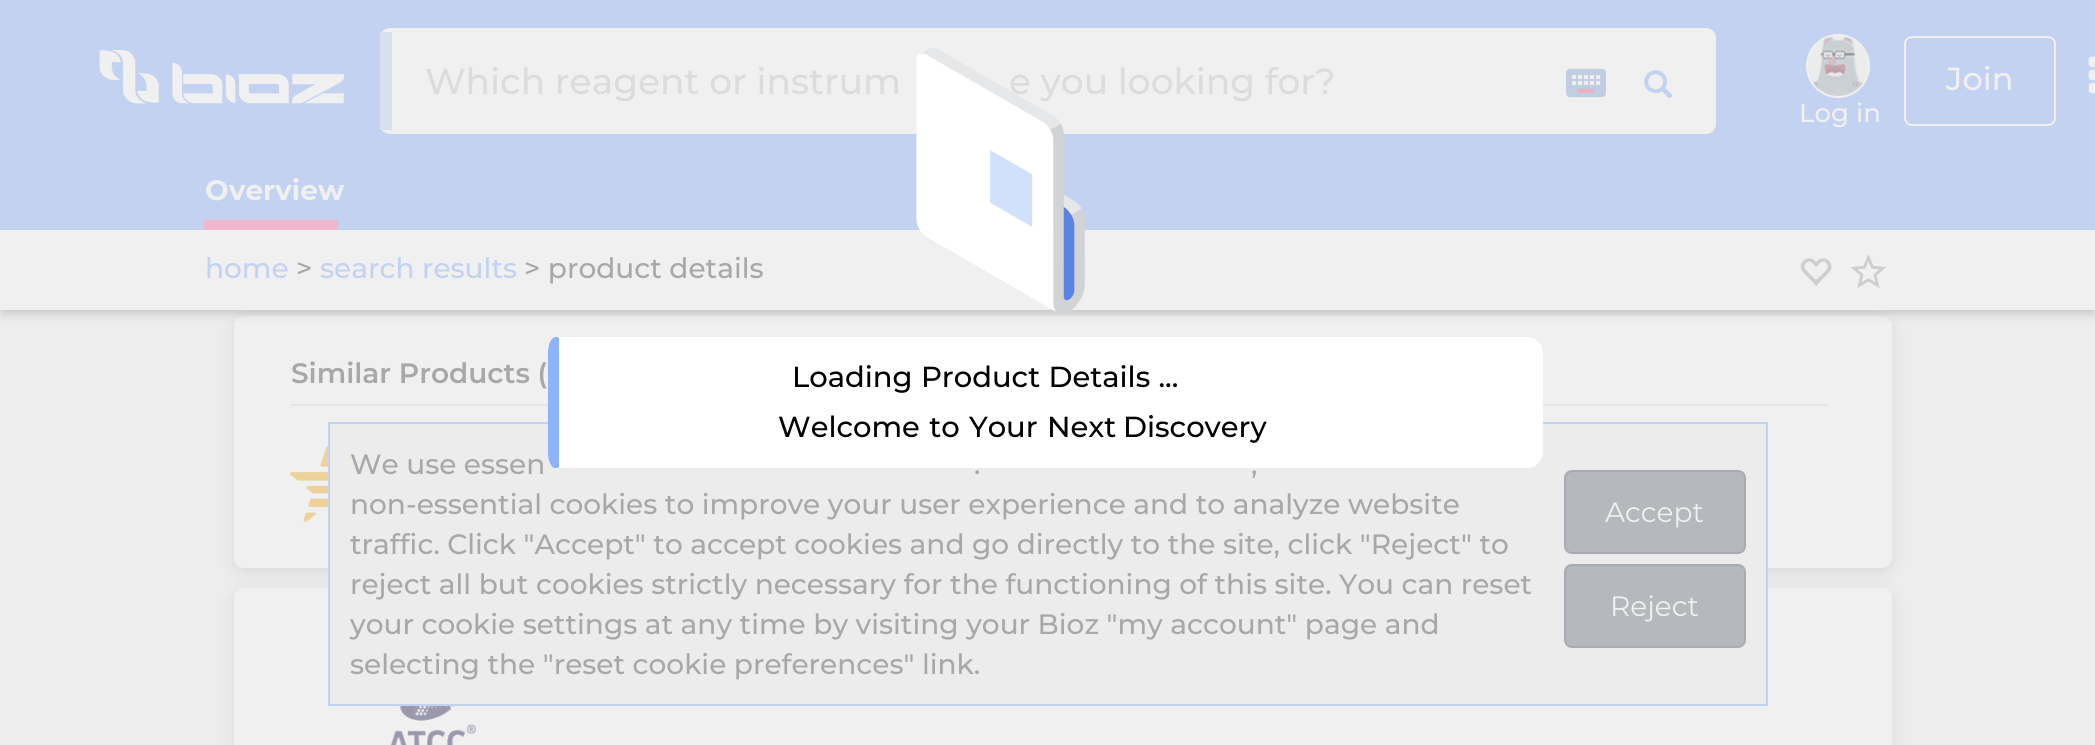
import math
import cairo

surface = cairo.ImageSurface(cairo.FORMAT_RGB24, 2095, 745)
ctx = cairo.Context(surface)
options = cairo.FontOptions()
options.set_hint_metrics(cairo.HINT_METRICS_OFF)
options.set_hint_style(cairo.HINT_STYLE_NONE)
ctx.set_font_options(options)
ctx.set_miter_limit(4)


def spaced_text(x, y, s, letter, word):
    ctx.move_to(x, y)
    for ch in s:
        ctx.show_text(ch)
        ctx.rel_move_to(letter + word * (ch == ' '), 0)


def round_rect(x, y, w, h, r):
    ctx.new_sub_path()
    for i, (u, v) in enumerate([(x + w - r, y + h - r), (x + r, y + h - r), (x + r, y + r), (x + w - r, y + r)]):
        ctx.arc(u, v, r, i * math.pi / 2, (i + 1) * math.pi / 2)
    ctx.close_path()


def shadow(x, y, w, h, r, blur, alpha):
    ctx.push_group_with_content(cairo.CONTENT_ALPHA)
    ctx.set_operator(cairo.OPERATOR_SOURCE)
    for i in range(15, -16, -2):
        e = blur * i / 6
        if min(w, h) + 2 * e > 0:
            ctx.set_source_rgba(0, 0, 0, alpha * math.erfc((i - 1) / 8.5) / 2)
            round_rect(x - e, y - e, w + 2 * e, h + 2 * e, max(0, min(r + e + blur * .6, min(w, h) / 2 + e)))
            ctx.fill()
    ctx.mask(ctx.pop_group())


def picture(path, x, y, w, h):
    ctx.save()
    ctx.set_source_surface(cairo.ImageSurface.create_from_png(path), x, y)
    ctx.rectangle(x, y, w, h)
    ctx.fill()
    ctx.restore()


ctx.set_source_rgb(0.929, 0.929, 0.929)
ctx.paint()
ctx.set_source_rgb(0.541, 0.541, 0.541)
shadow(234, 320, 1658, 252, 10, 8, 0.2)
ctx.set_source_rgb(0.941, 0.941, 0.941)
round_rect(235, 317, 1656, 250, 9)
ctx.fill_preserve()
ctx.stroke()
ctx.set_source_rgb(0.541, 0.541, 0.541)
shadow(0, 2, 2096, 310, 0, 8, 0.12)
shadow(4, 10, 2088, 302, 0, 3, 0.2)
shadow(0, 6, 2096, 310, 0, 4, 0.14)
ctx.set_source_rgb(0.761, 0.824, 0.941)
ctx.rectangle(0, 0, 2095, 230)
ctx.fill()
picture("img1.png", 99, 50, 246, 54)
ctx.set_source_rgb(0.941, 0.941, 0.941)
round_rect(380, 28, 1336, 106, 10)
ctx.fill()
ctx.set_source_rgb(0.847, 0.878, 0.933)
ctx.rectangle(380, 32, 12, 98)
ctx.fill()
ctx.select_font_face("Montserrat Medium")
ctx.set_font_size(36)
ctx.set_source_rgb(0.863, 0.863, 0.863)
ctx.move_to(425, 94)
ctx.show_text("Which reagent or instrum")
ctx.move_to(1009, 94)
ctx.show_text("e you looking for?")
picture("img2.png", 1566, 68, 40, 30)
picture("img3.png", 1644, 70, 29, 29)
round_rect(1905, 37, 150, 88, 7)
ctx.set_source_rgb(0.941, 0.941, 0.941)
ctx.stroke()
ctx.set_font_size(32)
ctx.move_to(1946, 90)
ctx.show_text("Join")
ctx.set_source_rgb(0.922, 0.922, 0.922)
ctx.new_path()
ctx.arc(1838, 66, 31, 0, 2 * math.pi)
ctx.fill_preserve()
ctx.set_source_rgb(0.941, 0.941, 0.941)
ctx.stroke()
picture("img4.png", 1812, 36, 51, 60)
ctx.set_font_size(26)
ctx.move_to(1799, 122)
ctx.show_text("Log in")
picture("img5.png", 2088, 56, 7, 38)
ctx.select_font_face("Montserrat", cairo.FONT_SLANT_NORMAL, cairo.FONT_WEIGHT_BOLD)
ctx.set_font_size(28)
ctx.move_to(205, 200)
ctx.show_text("Overview")
ctx.set_source_rgb(0.941, 0.722, 0.808)
ctx.rectangle(204, 220, 134, 10)
ctx.fill()
ctx.set_source_rgb(0.941, 0.941, 0.941)
ctx.rectangle(0, 230, 2095, 80)
ctx.fill()
ctx.select_font_face("Montserrat Medium")
ctx.set_source_rgb(0.761, 0.824, 0.941)
ctx.move_to(205, 278)
ctx.show_text("home")
ctx.set_source_rgb(0.659, 0.659, 0.659)
ctx.move_to(296, 278)
ctx.show_text(">")
ctx.set_source_rgb(0.761, 0.824, 0.941)
ctx.move_to(320, 278)
ctx.show_text("search results")
ctx.set_source_rgb(0.659, 0.659, 0.659)
ctx.move_to(524, 278)
ctx.show_text("> product details")
picture("img6.png", 1800, 258, 32, 29)
picture("img7.png", 1850, 254, 37, 34)
ctx.set_source_rgb(0.902, 0.902, 0.902)
ctx.rectangle(290, 404, 1538, 2)
ctx.fill()
ctx.select_font_face("Montserrat SemiBold")
ctx.set_source_rgb(0.659, 0.659, 0.659)
ctx.move_to(291, 383)
ctx.show_text("Similar Products (")
picture("img8.png", 290, 446, 38, 76)
ctx.set_source_rgb(0.541, 0.541, 0.541)
shadow(234, 592, 1658, 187, 10, 8, 0.2)
ctx.set_source_rgb(0.941, 0.941, 0.941)
round_rect(234, 588, 1658, 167, 10)
ctx.fill()
picture("img9.png", 390, 706, 87, 39)
ctx.set_source_rgb(0.922, 0.925, 0.925)
ctx.rectangle(329, 423, 1438, 282)
ctx.fill_preserve()
ctx.set_source_rgb(0.761, 0.824, 0.941)
ctx.stroke()
picture("img10.png", 548, 48, 995, 420)
ctx.select_font_face("Montserrat Medium")
ctx.set_font_size(29)
ctx.set_source_rgb(0, 0, 0)
spaced_text(792, 387, "Loading Product Details ...", 0, 0.5)
spaced_text(778, 437, "Welcome to Your Next", 0, 1.5)
spaced_text(1123, 437, "Discovery", 0, 1.5)
ctx.set_font_size(28)
ctx.set_source_rgb(0.659, 0.659, 0.659)
ctx.move_to(350, 474)
ctx.show_text("We use essen")
ctx.move_to(974, 474)
ctx.show_text(".")
ctx.move_to(1251, 474)
ctx.show_text(",")
ctx.move_to(350, 514)
ctx.show_text("non-essential cookies to improve your user experience and to analyze website")
ctx.move_to(350, 554)
ctx.show_text("traffic. Click \"Accept\" to accept cookies and go directly to the site, click \"Reject\" to")
ctx.move_to(350, 594)
ctx.show_text("reject all but cookies strictly necessary for the functioning of this site. You can reset")
ctx.move_to(350, 634)
ctx.show_text("your cookie settings at any time by visiting your Bioz \"my account\" page and")
ctx.move_to(350, 674)
ctx.show_text("selecting the \"reset cookie preferences\" link.")
ctx.set_source_rgb(0.71, 0.722, 0.741)
round_rect(1565, 471, 180, 82, 7)
ctx.fill_preserve()
ctx.set_source_rgb(0.659, 0.675, 0.698)
ctx.stroke()
ctx.select_font_face("Montserrat")
ctx.set_source_rgb(0.941, 0.941, 0.941)
ctx.move_to(1605, 522)
ctx.show_text("Accept")
ctx.set_source_rgb(0.71, 0.722, 0.741)
round_rect(1565, 565, 180, 82, 7)
ctx.fill_preserve()
ctx.set_source_rgb(0.659, 0.675, 0.698)
ctx.stroke()
ctx.set_source_rgb(0.941, 0.941, 0.941)
ctx.move_to(1610, 616)
ctx.show_text("Reject")
surface.write_to_png("page.png")
